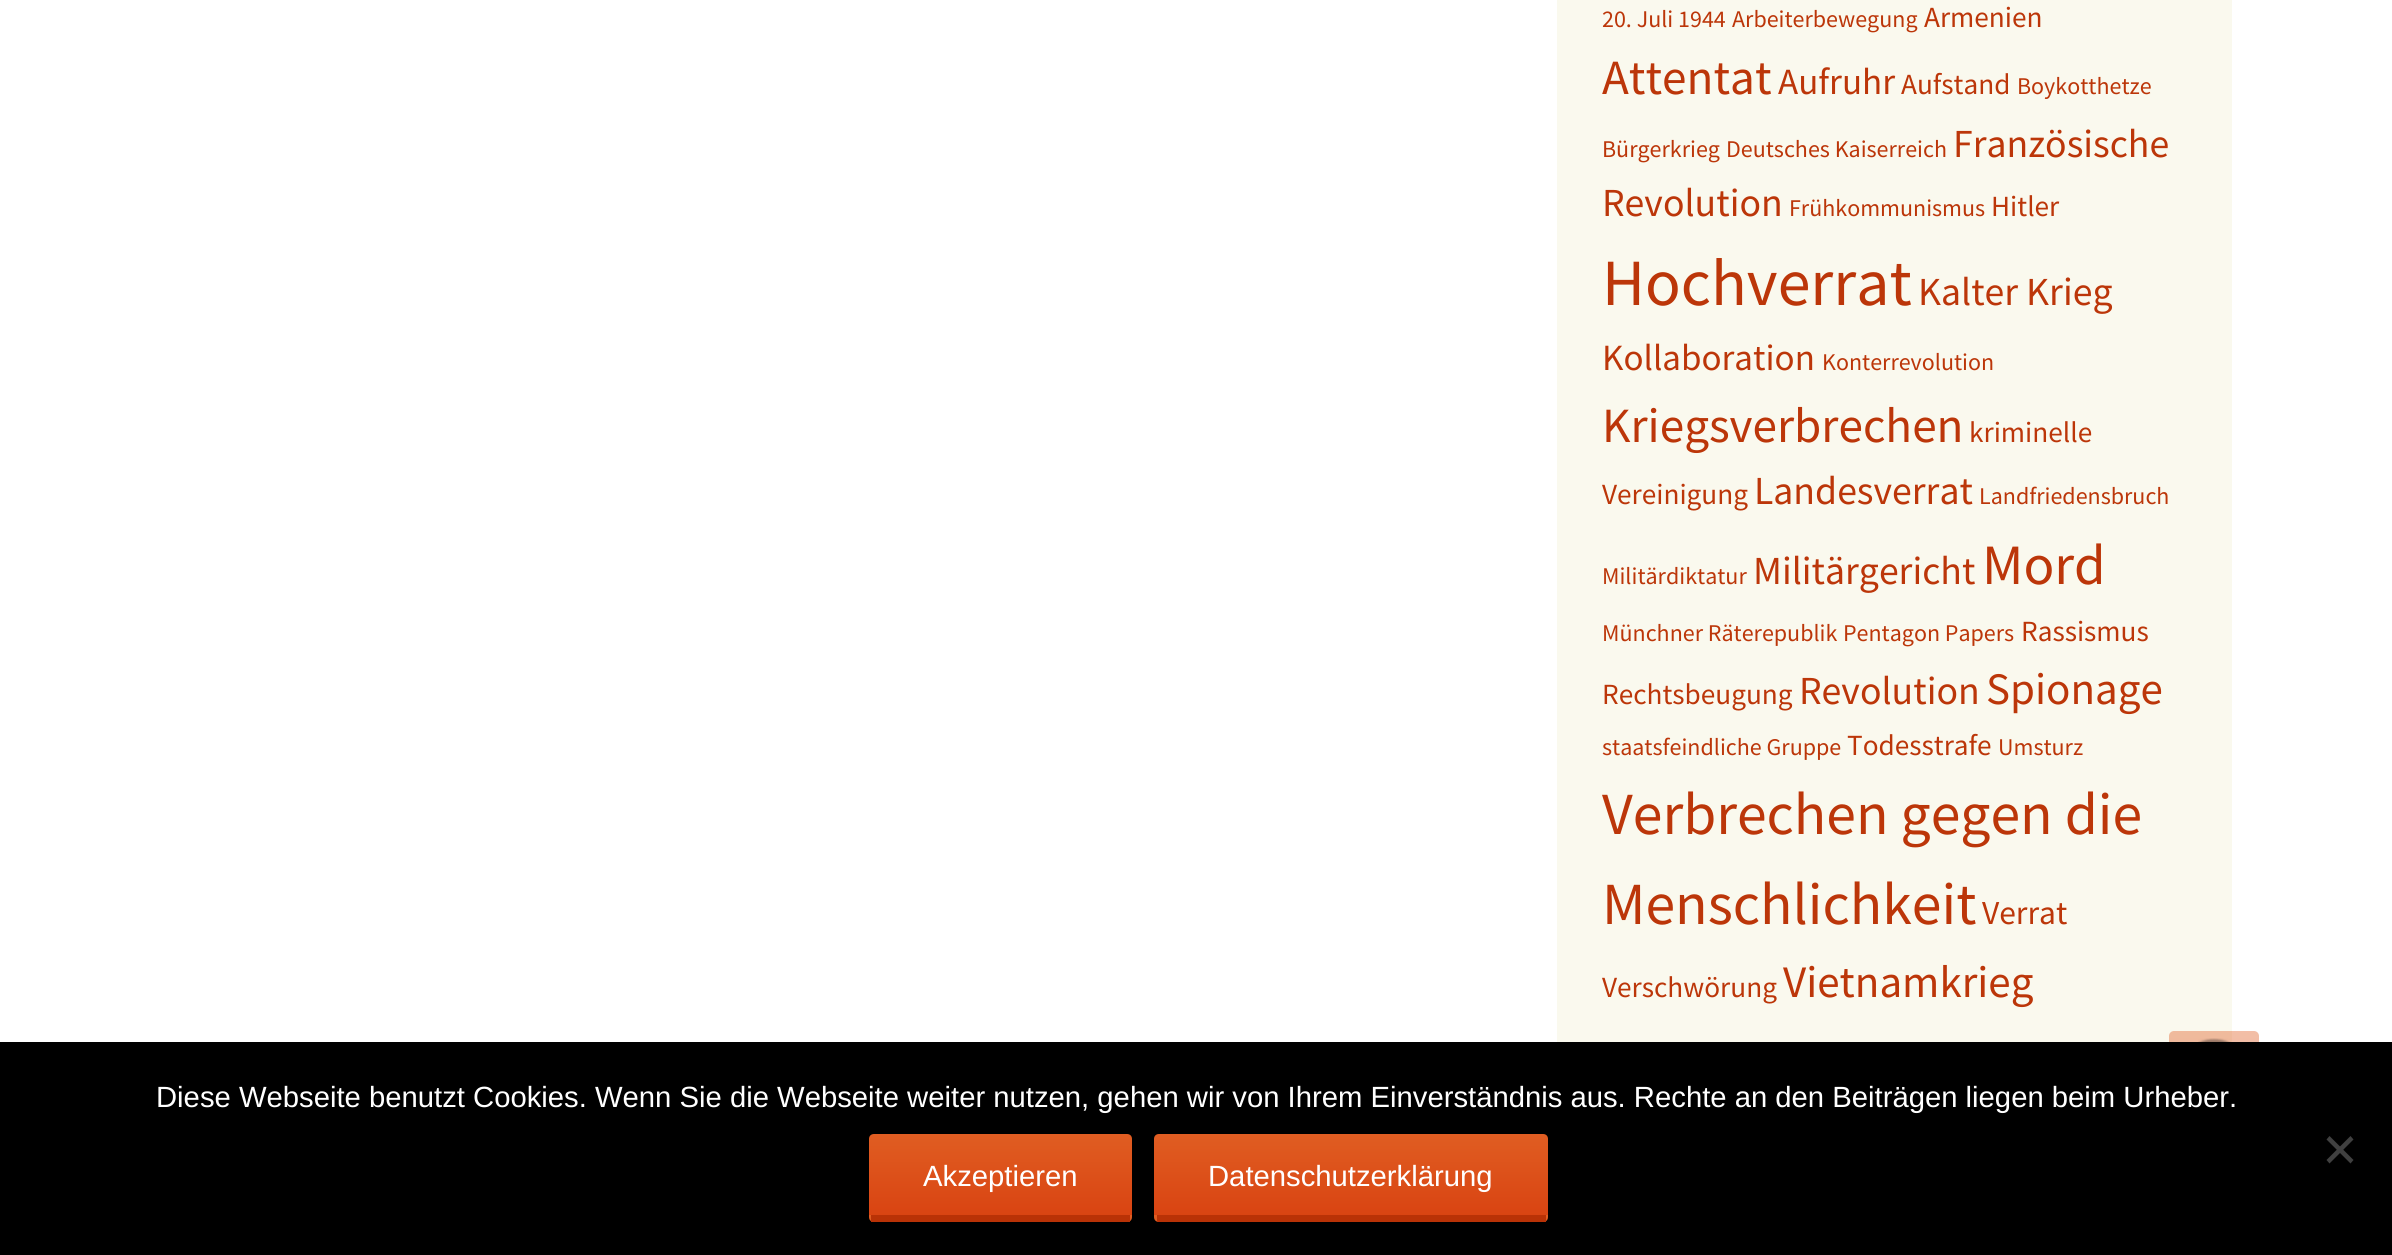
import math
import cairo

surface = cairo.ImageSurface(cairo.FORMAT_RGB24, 2392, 1255)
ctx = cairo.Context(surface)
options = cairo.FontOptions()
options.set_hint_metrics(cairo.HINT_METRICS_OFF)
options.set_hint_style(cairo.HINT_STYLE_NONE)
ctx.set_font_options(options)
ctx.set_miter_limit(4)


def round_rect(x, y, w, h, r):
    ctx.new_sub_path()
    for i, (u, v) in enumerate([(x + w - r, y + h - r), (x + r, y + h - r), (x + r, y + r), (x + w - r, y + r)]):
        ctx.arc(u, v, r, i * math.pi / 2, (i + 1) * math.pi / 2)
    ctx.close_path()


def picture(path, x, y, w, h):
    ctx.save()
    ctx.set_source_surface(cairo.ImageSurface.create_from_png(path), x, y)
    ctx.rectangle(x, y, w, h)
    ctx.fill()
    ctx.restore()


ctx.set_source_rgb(1, 1, 1)
ctx.paint()
ctx.set_source_rgb(0.98, 0.973, 0.933)
ctx.rectangle(1557, 0, 675, 1042)
ctx.fill()
ctx.select_font_face("Source Sans Pro")
ctx.set_font_size(24)
ctx.set_source_rgb(0.737, 0.212, 0.039)
ctx.move_to(1602, 27)
ctx.show_text("20. Juli 1944")
ctx.move_to(1732, 27)
ctx.show_text("Arbeiterbewegung")
ctx.set_font_size(29.25)
ctx.move_to(1924, 27)
ctx.show_text("Armenien")
ctx.set_font_size(49.25)
ctx.move_to(1602, 94)
ctx.show_text("Attentat")
ctx.set_font_size(37)
ctx.move_to(1778, 94)
ctx.show_text("Aufruhr")
ctx.set_font_size(29.25)
ctx.move_to(1901, 94)
ctx.show_text("Aufstand")
ctx.set_font_size(24)
ctx.move_to(2017, 94)
ctx.show_text("Boykotthetze")
ctx.move_to(1602, 157)
ctx.show_text("Bürgerkrieg")
ctx.move_to(1726, 157)
ctx.show_text("Deutsches Kaiserreich")
ctx.set_font_size(39.75)
ctx.move_to(1953, 157)
ctx.show_text("Französische")
ctx.move_to(1602, 216)
ctx.show_text("Revolution")
ctx.set_font_size(24)
ctx.move_to(1789, 216)
ctx.show_text("Frühkommunismus")
ctx.set_font_size(29.25)
ctx.move_to(1991, 216)
ctx.show_text("Hitler")
ctx.set_font_size(66)
ctx.move_to(1602, 305)
ctx.show_text("Hochverrat")
ctx.set_font_size(39.75)
ctx.move_to(1918, 305)
ctx.show_text("Kalter Krieg")
ctx.set_font_size(37)
ctx.move_to(1602, 370)
ctx.show_text("Kollaboration")
ctx.set_font_size(24)
ctx.move_to(1822, 370)
ctx.show_text("Konterrevolution")
ctx.set_font_size(49.25)
ctx.move_to(1602, 442)
ctx.show_text("Kriegsverbrechen")
ctx.set_font_size(29.25)
ctx.move_to(1969, 442)
ctx.show_text("kriminelle")
ctx.move_to(1602, 504)
ctx.show_text("Vereinigung")
ctx.set_font_size(39.75)
ctx.move_to(1754, 504)
ctx.show_text("Landesverrat")
ctx.set_font_size(24)
ctx.move_to(1979, 504)
ctx.show_text("Landfriedensbruch")
ctx.move_to(1602, 584)
ctx.show_text("Militärdiktatur")
ctx.set_font_size(39.75)
ctx.move_to(1753, 584)
ctx.show_text("Militärgericht")
ctx.set_font_size(57)
ctx.move_to(1982, 584)
ctx.show_text("Mord")
ctx.set_font_size(24)
ctx.move_to(1602, 641)
ctx.show_text("Münchner Räterepublik")
ctx.move_to(1843, 641)
ctx.show_text("Pentagon Papers")
ctx.set_font_size(29.25)
ctx.move_to(2021, 641)
ctx.show_text("Rassismus")
ctx.move_to(1602, 704)
ctx.show_text("Rechtsbeugung")
ctx.set_font_size(39.75)
ctx.move_to(1799, 704)
ctx.show_text("Revolution")
ctx.set_font_size(45)
ctx.move_to(1986, 704)
ctx.show_text("Spionage")
ctx.set_font_size(24)
ctx.move_to(1602, 755)
ctx.show_text("staatsfeindliche Gruppe")
ctx.set_font_size(29.25)
ctx.move_to(1847, 755)
ctx.show_text("Todesstrafe")
ctx.set_font_size(24)
ctx.move_to(1998, 755)
ctx.show_text("Umsturz")
ctx.set_font_size(59.75)
ctx.move_to(1602, 834)
ctx.show_text("Verbrechen gegen die")
ctx.move_to(1602, 924)
ctx.show_text("Menschlichkeit")
ctx.set_font_size(33.5)
ctx.move_to(1982, 924)
ctx.show_text("Verrat")
ctx.set_font_size(29.25)
ctx.move_to(1602, 997)
ctx.show_text("Verschwörung")
ctx.set_font_size(45)
ctx.move_to(1783, 997)
ctx.show_text("Vietnamkrieg")
gradient = cairo.LinearGradient(2214, 1031, 2214, 1121)
gradient.add_color_stop_rgba(0, 0.878, 0.365, 0.133, 0.4)
gradient.add_color_stop_rgba(1, 0.851, 0.267, 0.071, 0.4)
ctx.set_source(gradient)
round_rect(2169, 1031, 90, 90, 5)
ctx.fill()
picture("img1.png", 2198, 1038, 33, 4)
ctx.set_source_rgb(0, 0, 0)
ctx.rectangle(0, 1042, 2392, 213)
ctx.fill()
ctx.select_font_face("Liberation Sans")
ctx.set_font_size(29.25)
ctx.set_source_rgb(1, 1, 1)
ctx.move_to(156, 1107)
ctx.show_text("Diese Webseite benutzt Cookies. Wenn Sie die Webseite weiter nutzen, gehen wir von Ihrem Einverständnis aus. Rechte an den Beiträgen liegen beim Urheber.")
ctx.set_source_rgb(0.251, 0.251, 0.251)
ctx.new_path()
ctx.move_to(2350.5, 1136)
ctx.line_to(2353.5, 1139.5)
ctx.line_to(2329.5, 1163.5)
ctx.line_to(2326.5, 1160)
ctx.close_path()
ctx.fill()
ctx.new_path()
ctx.move_to(2326.5, 1139.5)
ctx.line_to(2329.5, 1136)
ctx.line_to(2353.5, 1160)
ctx.line_to(2350.5, 1163.5)
ctx.close_path()
ctx.fill()
gradient = cairo.LinearGradient(1000, 1134, 1000, 1215)
gradient.add_color_stop_rgba(0, 0.878, 0.365, 0.133, 1)
gradient.add_color_stop_rgba(1, 0.851, 0.267, 0.071, 1)
ctx.set_source(gradient)
ctx.new_path()
ctx.move_to(874, 1134)
ctx.line_to(1127, 1134)
ctx.curve_to(1130, 1134, 1132, 1136, 1132, 1139)
ctx.line_to(1132, 1215)
ctx.line_to(869, 1215)
ctx.line_to(869, 1139)
ctx.curve_to(869, 1136, 871, 1134, 874, 1134)
ctx.close_path()
ctx.fill()
gradient = cairo.LinearGradient(1000, 1215, 1000, 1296)
gradient.add_color_stop_rgba(0, 0.878, 0.365, 0.133, 1)
gradient.add_color_stop_rgba(1, 0.851, 0.267, 0.071, 1)
ctx.set_source(gradient)
ctx.new_path()
ctx.move_to(869, 1215)
ctx.line_to(1132, 1215)
ctx.line_to(1132, 1217)
ctx.curve_to(1132, 1220, 1130, 1222, 1127, 1222)
ctx.line_to(874, 1222)
ctx.curve_to(871, 1222, 869, 1220, 869, 1217)
ctx.close_path()
ctx.fill()
ctx.set_source_rgb(0.725, 0.196, 0.027)
ctx.rectangle(871, 1215, 259, 7)
ctx.fill()
ctx.set_source_rgb(1, 1, 1)
ctx.move_to(923, 1186)
ctx.show_text("Akzeptieren")
gradient = cairo.LinearGradient(1351, 1134, 1351, 1215)
gradient.add_color_stop_rgba(0, 0.878, 0.365, 0.133, 1)
gradient.add_color_stop_rgba(1, 0.851, 0.267, 0.071, 1)
ctx.set_source(gradient)
ctx.new_path()
ctx.move_to(1159, 1134)
ctx.line_to(1543, 1134)
ctx.curve_to(1546, 1134, 1548, 1136, 1548, 1139)
ctx.line_to(1548, 1215)
ctx.line_to(1154, 1215)
ctx.line_to(1154, 1139)
ctx.curve_to(1154, 1136, 1156, 1134, 1159, 1134)
ctx.close_path()
ctx.fill()
gradient = cairo.LinearGradient(1351, 1215, 1351, 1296)
gradient.add_color_stop_rgba(0, 0.878, 0.365, 0.133, 1)
gradient.add_color_stop_rgba(1, 0.851, 0.267, 0.071, 1)
ctx.set_source(gradient)
ctx.new_path()
ctx.move_to(1154, 1215)
ctx.line_to(1548, 1215)
ctx.line_to(1548, 1217)
ctx.curve_to(1548, 1220, 1546, 1222, 1543, 1222)
ctx.line_to(1159, 1222)
ctx.curve_to(1156, 1222, 1154, 1220, 1154, 1217)
ctx.close_path()
ctx.fill()
ctx.set_source_rgb(0.725, 0.196, 0.027)
ctx.rectangle(1157, 1215, 389, 7)
ctx.fill()
ctx.set_source_rgb(1, 1, 1)
ctx.move_to(1208, 1186)
ctx.show_text("Datenschutzerklärung")
surface.write_to_png("page.png")
